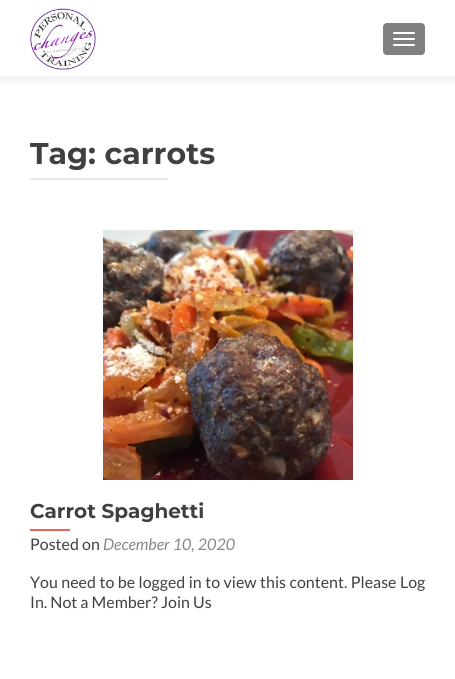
import math
import cairo

surface = cairo.ImageSurface(cairo.FORMAT_RGB24, 455, 679)
ctx = cairo.Context(surface)
options = cairo.FontOptions()
options.set_hint_metrics(cairo.HINT_METRICS_OFF)
options.set_hint_style(cairo.HINT_STYLE_NONE)
ctx.set_font_options(options)
ctx.set_miter_limit(4)


def spaced_text(x, y, s, letter, word):
    ctx.move_to(x, y)
    for ch in s:
        ctx.show_text(ch)
        ctx.rel_move_to(letter + word * (ch == ' '), 0)


def round_rect(x, y, w, h, r):
    ctx.new_sub_path()
    for i, (u, v) in enumerate([(x + w - r, y + h - r), (x + r, y + h - r), (x + r, y + r), (x + w - r, y + r)]):
        ctx.arc(u, v, r, i * math.pi / 2, (i + 1) * math.pi / 2)
    ctx.close_path()


def shadow(x, y, w, h, r, blur, alpha):
    ctx.push_group_with_content(cairo.CONTENT_ALPHA)
    ctx.set_operator(cairo.OPERATOR_SOURCE)
    for i in range(15, -16, -2):
        e = blur * i / 6
        if min(w, h) + 2 * e > 0:
            ctx.set_source_rgba(0, 0, 0, alpha * math.erfc((i - 1) / 8.5) / 2)
            round_rect(x - e, y - e, w + 2 * e, h + 2 * e, max(0, min(r + e + blur * .6, min(w, h) / 2 + e)))
            ctx.fill()
    ctx.mask(ctx.pop_group())


def picture(path, x, y, w, h):
    ctx.save()
    ctx.set_source_surface(cairo.ImageSurface.create_from_png(path), x, y)
    ctx.rectangle(x, y, w, h)
    ctx.fill()
    ctx.restore()


ctx.set_source_rgb(1, 1, 1)
ctx.paint()
ctx.save()
ctx.rectangle(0, 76, 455, 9)
ctx.clip()
ctx.set_source_rgb(0.196, 0.196, 0.196)
shadow(0, 5, 455, 76, 0, 5.5, 0.08)
ctx.restore()
picture("img1.png", 30, 8, 66, 62)
ctx.set_source_rgb(0.502, 0.502, 0.502)
round_rect(383, 23, 42, 32, 4)
ctx.fill()
ctx.set_source_rgb(1, 1, 1)
round_rect(393, 32, 22, 2, 1)
ctx.fill()
round_rect(393, 38, 22, 2, 1)
ctx.fill()
round_rect(393, 44, 22, 2, 1)
ctx.fill()
ctx.set_source_rgb(0.949, 0.949, 0.949)
ctx.rectangle(15, 250, 1, 1)
ctx.fill()
ctx.select_font_face("Montserrat", cairo.FONT_SLANT_NORMAL, cairo.FONT_WEIGHT_BOLD)
ctx.set_font_size(30)
ctx.set_source_rgb(0.251, 0.251, 0.251)
ctx.move_to(30, 164)
ctx.show_text("Tag: carrots")
ctx.set_source_rgb(0.914, 0.914, 0.914)
ctx.rectangle(30, 178, 138, 2)
ctx.fill()
picture("img2.png", 103, 230, 250, 250)
ctx.set_font_size(20)
ctx.set_source_rgb(0.251, 0.251, 0.251)
ctx.move_to(30, 518)
ctx.show_text("Carrot Spaghetti")
ctx.set_source_rgb(0.914, 0.4, 0.337)
ctx.rectangle(30, 529, 40, 2)
ctx.fill()
ctx.select_font_face("Lato")
ctx.set_font_size(16)
ctx.set_source_rgb(0.251, 0.251, 0.251)
ctx.move_to(30, 550)
ctx.show_text("Posted on")
ctx.select_font_face("Lato", cairo.FONT_SLANT_ITALIC)
ctx.set_source_rgb(0.533, 0.533, 0.533)
ctx.move_to(103, 550)
ctx.show_text("December 10, 2020")
ctx.select_font_face("Lato")
ctx.set_source_rgb(0.251, 0.251, 0.251)
spaced_text(30, 588, "You need to be logged in to view this content. Please Log", 0, 0.4)
ctx.move_to(30, 608)
ctx.show_text("In. Not a Member? Join Us")
surface.write_to_png("page.png")
